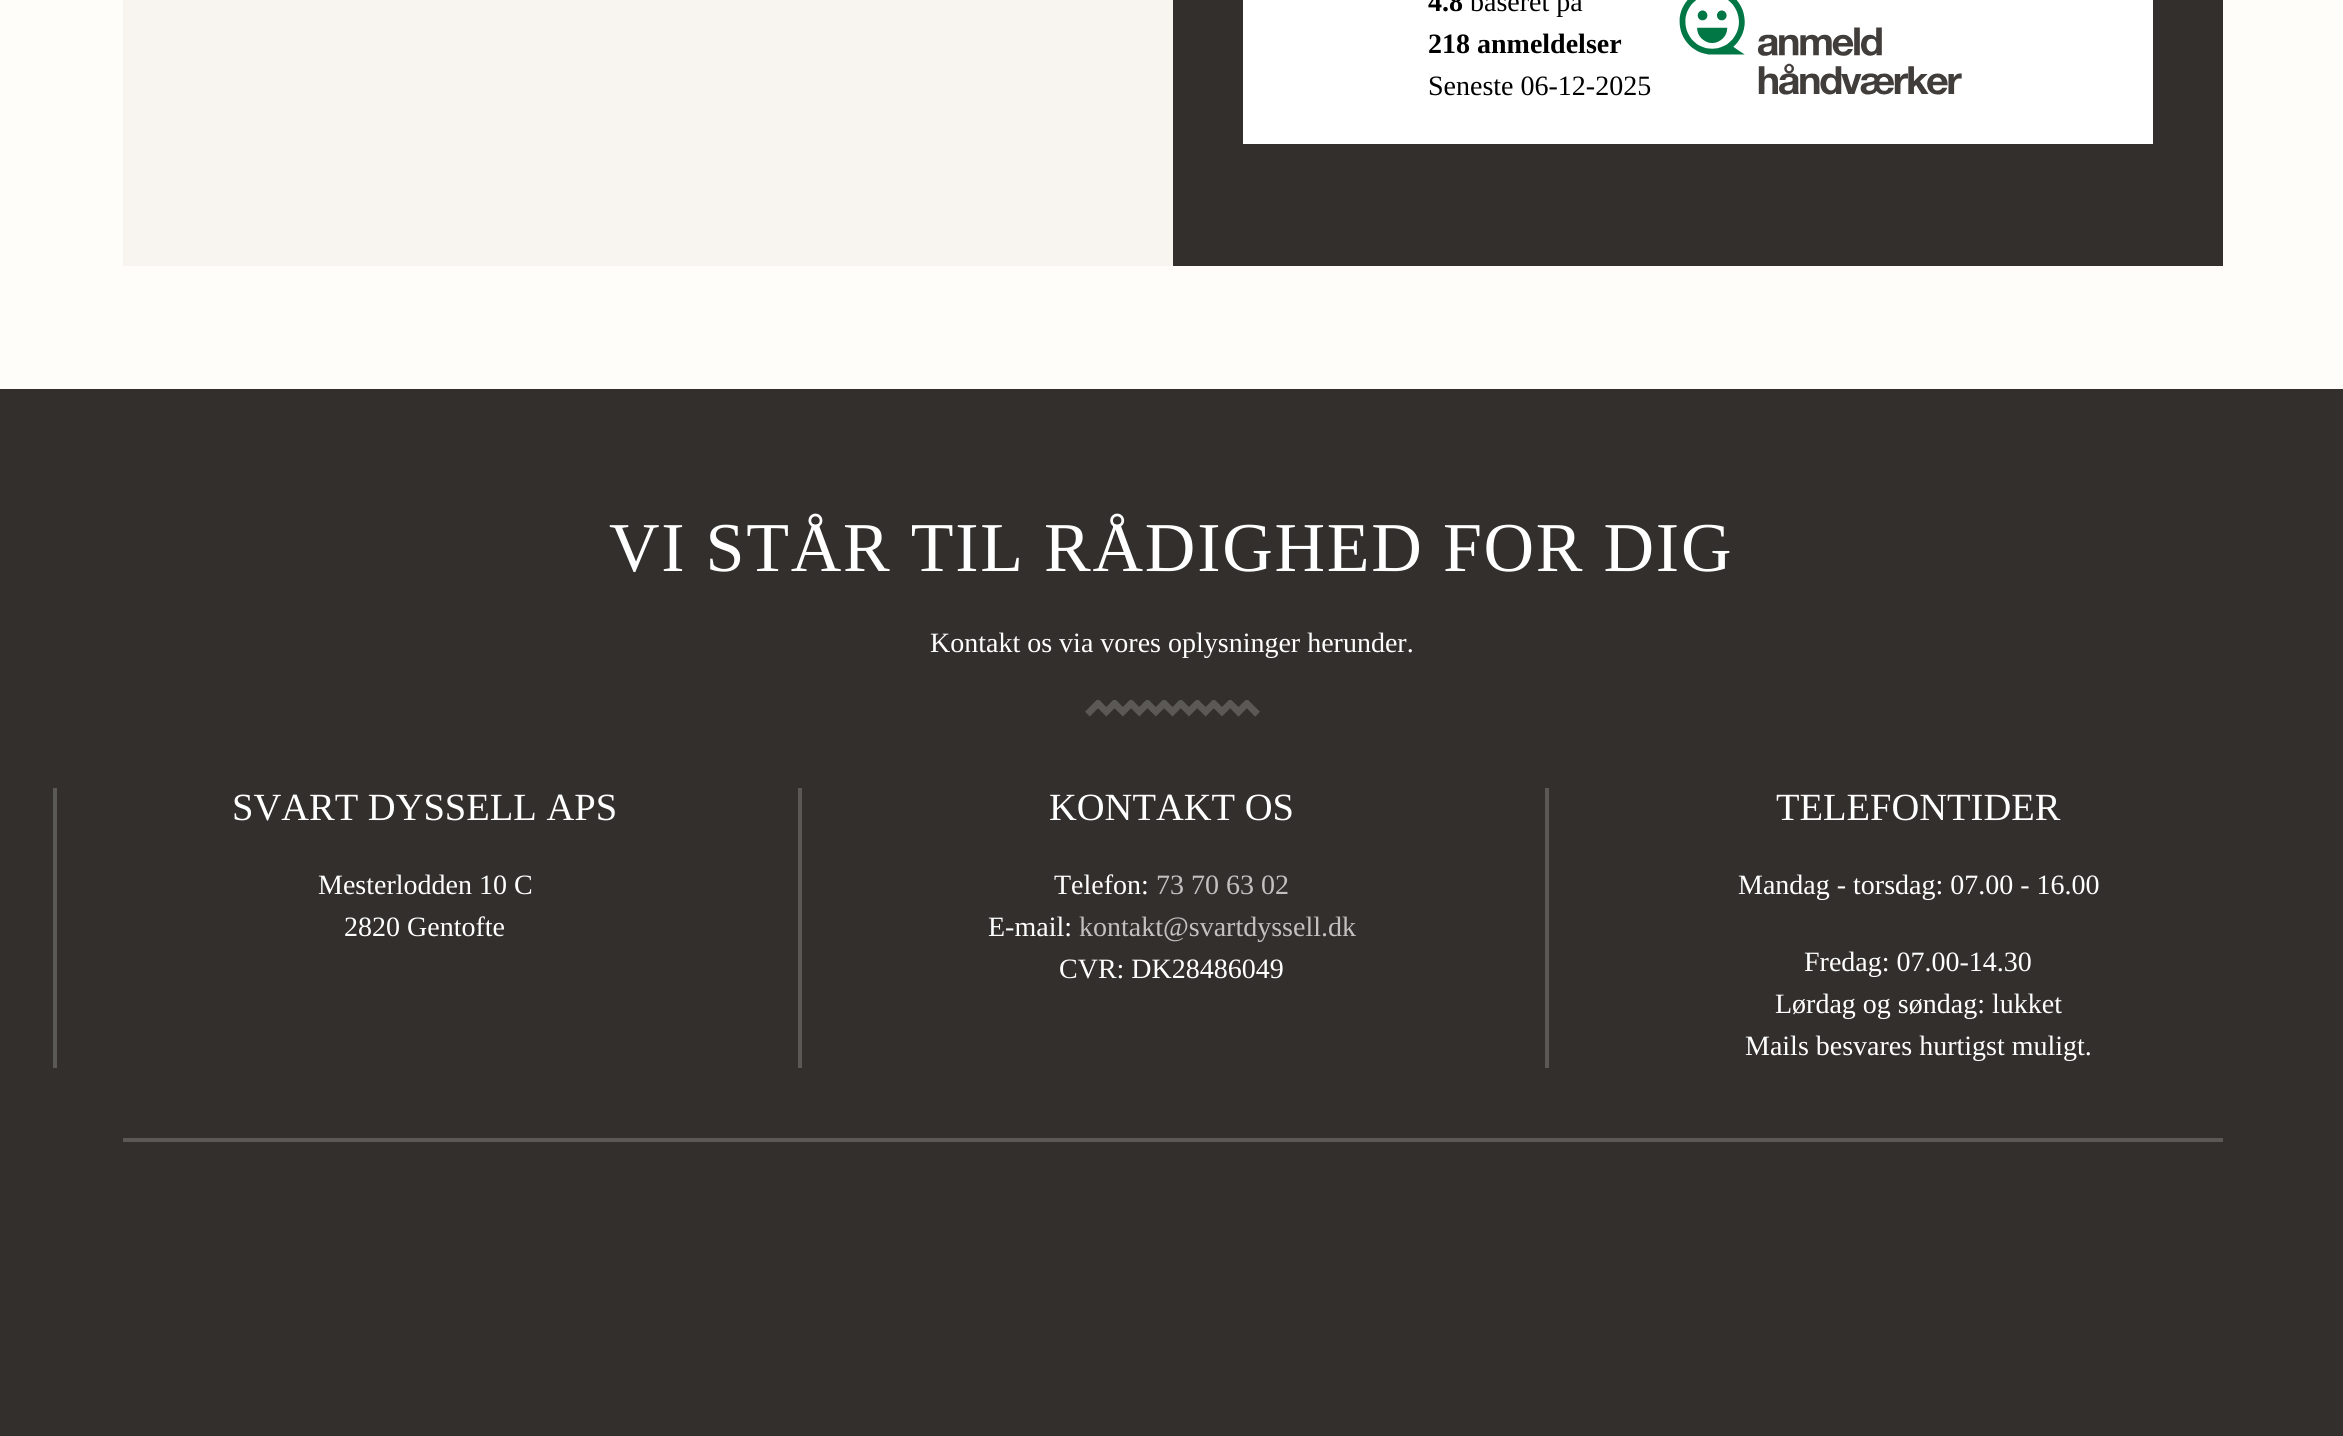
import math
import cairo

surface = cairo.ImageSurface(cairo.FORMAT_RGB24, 2343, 1436)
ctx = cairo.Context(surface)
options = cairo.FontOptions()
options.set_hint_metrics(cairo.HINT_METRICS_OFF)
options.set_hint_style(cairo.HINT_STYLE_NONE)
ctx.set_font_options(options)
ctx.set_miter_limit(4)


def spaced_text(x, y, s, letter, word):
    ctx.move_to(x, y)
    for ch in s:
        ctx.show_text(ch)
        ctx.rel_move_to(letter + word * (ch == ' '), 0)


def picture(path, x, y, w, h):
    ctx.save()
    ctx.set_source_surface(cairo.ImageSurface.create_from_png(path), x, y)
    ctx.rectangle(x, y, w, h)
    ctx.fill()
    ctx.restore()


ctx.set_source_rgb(1, 0.992, 0.976)
ctx.paint()
ctx.set_source_rgb(0.969, 0.957, 0.937)
ctx.rectangle(123, 0, 1050, 266)
ctx.fill()
ctx.set_source_rgb(0.196, 0.184, 0.173)
ctx.rectangle(1173, 0, 1050, 266)
ctx.fill()
ctx.set_source_rgb(1, 1, 1)
ctx.rectangle(1243, 0, 910, 144)
ctx.fill()
ctx.select_font_face("Liberation Serif", cairo.FONT_SLANT_NORMAL, cairo.FONT_WEIGHT_BOLD)
ctx.set_font_size(28)
ctx.set_source_rgb(0, 0, 0)
ctx.move_to(1428, 11)
ctx.show_text("4.8")
ctx.select_font_face("Liberation Serif")
ctx.move_to(1470, 11)
ctx.show_text("baseret på")
ctx.select_font_face("Liberation Serif", cairo.FONT_SLANT_NORMAL, cairo.FONT_WEIGHT_BOLD)
ctx.move_to(1428, 53)
ctx.show_text("218 anmeldelser")
ctx.select_font_face("Liberation Serif")
ctx.move_to(1428, 95)
ctx.show_text("Seneste 06-12-2025")
picture("img1.png", 1679, 0, 283, 95)
ctx.set_source_rgb(0.196, 0.184, 0.173)
ctx.rectangle(0, 389, 2343, 1047)
ctx.fill()
ctx.set_font_size(70)
ctx.set_source_rgb(1, 1, 1)
spaced_text(609, 571, "VI STÅR TIL RÅDIGHED FOR DIG", 1.75, 0)
ctx.set_font_size(28)
ctx.move_to(930, 652)
ctx.show_text("Kontakt os via vores oplysninger herunder.")
picture("img2.png", 1085, 700, 175, 17)
ctx.set_source_rgb(0.357, 0.349, 0.337)
ctx.rectangle(53, 788, 4, 280)
ctx.fill()
ctx.set_font_size(38.5)
ctx.set_source_rgb(1, 1, 1)
ctx.move_to(232, 820)
ctx.show_text("SVART DYSSELL APS")
ctx.set_font_size(28)
ctx.move_to(318, 894)
ctx.show_text("Mesterlodden 10 C")
ctx.move_to(344, 936)
ctx.show_text("2820 Gentofte")
ctx.set_source_rgb(0.357, 0.349, 0.337)
ctx.rectangle(798, 788, 4, 280)
ctx.fill()
ctx.set_font_size(38.5)
ctx.set_source_rgb(1, 1, 1)
ctx.move_to(1049, 820)
ctx.show_text("KONTAKT OS")
ctx.set_font_size(28)
ctx.move_to(1054, 894)
ctx.show_text("Telefon:")
ctx.set_source_rgb(0.761, 0.757, 0.753)
ctx.move_to(1156, 894)
ctx.show_text("73 70 63 02")
ctx.set_source_rgb(1, 1, 1)
ctx.move_to(988, 936)
ctx.show_text("E-mail:")
ctx.set_source_rgb(0.761, 0.757, 0.753)
ctx.move_to(1079, 936)
ctx.show_text("kontakt@svartdyssell.dk")
ctx.set_source_rgb(1, 1, 1)
ctx.move_to(1059, 978)
ctx.show_text("CVR: DK28486049")
ctx.set_source_rgb(0.357, 0.349, 0.337)
ctx.rectangle(1545, 788, 4, 280)
ctx.fill()
ctx.set_font_size(38.5)
ctx.set_source_rgb(1, 1, 1)
ctx.move_to(1776, 820)
ctx.show_text("TELEFONTIDER")
ctx.set_font_size(28)
ctx.move_to(1738, 894)
ctx.show_text("Mandag - torsdag: 07.00 - 16.00")
ctx.move_to(1804, 971)
ctx.show_text("Fredag: 07.00-14.30")
ctx.move_to(1775, 1013)
ctx.show_text("Lørdag og søndag: lukket")
ctx.move_to(1745, 1055)
ctx.show_text("Mails besvares hurtigst muligt.")
ctx.set_source_rgb(0.357, 0.349, 0.337)
ctx.rectangle(123, 1138, 2100, 4)
ctx.fill()
surface.write_to_png("page.png")
